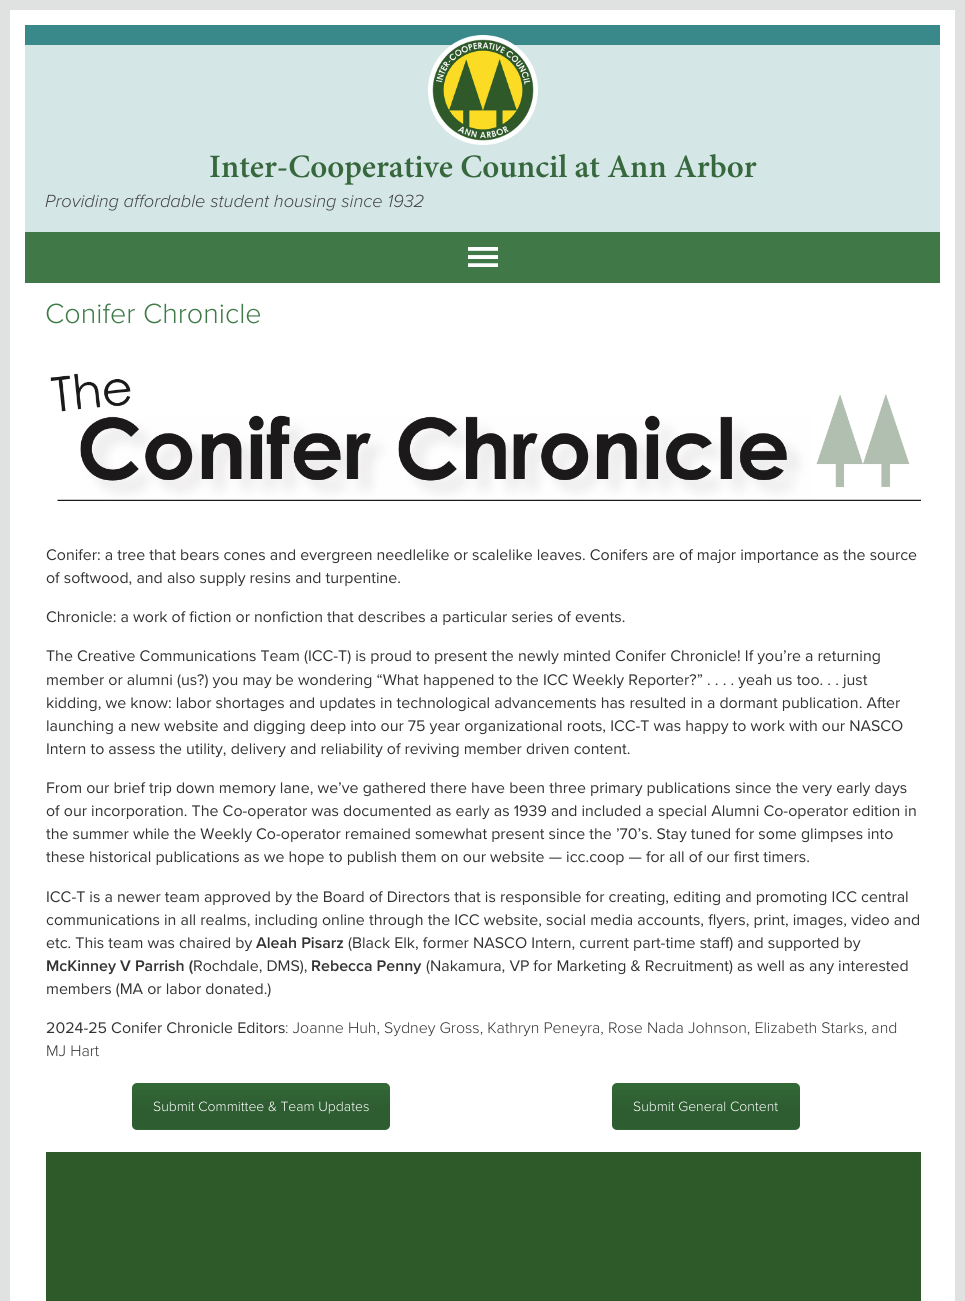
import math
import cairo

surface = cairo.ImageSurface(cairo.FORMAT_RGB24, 965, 1301)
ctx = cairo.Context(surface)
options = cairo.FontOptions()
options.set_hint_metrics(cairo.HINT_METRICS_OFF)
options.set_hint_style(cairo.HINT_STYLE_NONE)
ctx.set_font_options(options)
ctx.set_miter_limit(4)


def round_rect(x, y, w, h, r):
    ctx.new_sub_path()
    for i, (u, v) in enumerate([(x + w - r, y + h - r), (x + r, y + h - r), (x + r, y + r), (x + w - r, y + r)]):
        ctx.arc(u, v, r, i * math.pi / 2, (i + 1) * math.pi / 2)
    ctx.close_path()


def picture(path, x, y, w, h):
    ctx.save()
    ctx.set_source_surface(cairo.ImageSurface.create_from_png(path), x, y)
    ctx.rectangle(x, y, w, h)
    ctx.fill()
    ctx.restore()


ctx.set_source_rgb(0.878, 0.886, 0.886)
ctx.paint()
ctx.set_source_rgb(1, 1, 1)
ctx.rectangle(10, 10, 945, 1291)
ctx.fill()
ctx.set_source_rgb(0.831, 0.902, 0.902)
ctx.rectangle(25, 45, 915, 187)
ctx.fill()
ctx.set_source_rgb(0.224, 0.533, 0.541)
ctx.rectangle(25, 25, 915, 20)
ctx.fill()
picture("img1.png", 428, 35, 110, 110)
ctx.select_font_face("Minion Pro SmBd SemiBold")
ctx.set_font_size(32.7)
ctx.set_source_rgb(0.212, 0.404, 0.239)
ctx.move_to(209, 177)
ctx.show_text("Inter-Cooperative Council at Ann Arbor")
ctx.select_font_face("Proxima Nova Light", cairo.FONT_SLANT_ITALIC)
ctx.set_font_size(18.25)
ctx.set_source_rgb(0.267, 0.267, 0.267)
ctx.move_to(45, 207)
ctx.show_text("Providing affordable student housing since 1932")
ctx.set_source_rgb(0.251, 0.475, 0.278)
ctx.rectangle(25, 232, 915, 51)
ctx.fill()
picture("img2.png", 468, 247, 30, 20)
ctx.select_font_face("Proxima Nova Light")
ctx.set_font_size(28.75)
ctx.set_source_rgb(0.243, 0.482, 0.282)
ctx.move_to(45, 323)
ctx.show_text("Conifer Chronicle")
picture("img3.png", 50, 373, 871, 128)
ctx.select_font_face("Proxima Nova")
ctx.set_font_size(15.95)
ctx.set_source_rgb(0.2, 0.2, 0.2)
ctx.move_to(46, 560)
ctx.show_text("Conifer: a tree that bears cones and evergreen needlelike or scalelike leaves. Conifers are of major importance as the source")
ctx.move_to(46, 583)
ctx.show_text("of softwood, and also supply resins and turpentine.")
ctx.move_to(46, 622)
ctx.show_text("Chronicle: a work of fiction or nonfiction that describes a particular series of events.")
ctx.move_to(46, 661)
ctx.show_text("The Creative Communications Team (ICC-T) is proud to present the newly minted Conifer Chronicle! If you’re a returning")
ctx.move_to(46, 685)
ctx.show_text("member or alumni (us?) you may be wondering “What happened to the ICC Weekly Reporter?” . . . . yeah us too. . . just")
ctx.move_to(46, 708)
ctx.show_text("kidding, we know: labor shortages and updates in technological advancements has resulted in a dormant publication. After")
ctx.move_to(46, 731)
ctx.show_text("launching a new website and digging deep into our 75 year organizational roots, ICC-T was happy to work with our NASCO")
ctx.move_to(46, 754)
ctx.show_text("Intern to assess the utility, delivery and reliability of reviving member driven content.")
ctx.move_to(46, 793)
ctx.show_text("From our brief trip down memory lane, we’ve gathered there have been three primary publications since the very early days")
ctx.move_to(46, 816)
ctx.show_text("of our incorporation. The Co-operator was documented as early as 1939 and included a special Alumni Co-operator edition in")
ctx.move_to(46, 839)
ctx.show_text("the summer while the Weekly Co-operator remained somewhat present since the ’70’s. Stay tuned for some glimpses into")
ctx.move_to(46, 862)
ctx.show_text("these historical publications as we hope to publish them on our website — icc.coop — for all of our first timers.")
ctx.move_to(46, 902)
ctx.show_text("ICC-T is a newer team approved by the Board of Directors that is responsible for creating, editing and promoting ICC central")
ctx.move_to(46, 925)
ctx.show_text("communications in all realms, including online through the ICC website, social media accounts, flyers, print, images, video and")
ctx.move_to(46, 948)
ctx.show_text("etc. This team was chaired by")
ctx.select_font_face("Proxima Nova SemiBold")
ctx.move_to(256, 948)
ctx.show_text("Aleah Pisarz")
ctx.select_font_face("Proxima Nova")
ctx.move_to(348, 948)
ctx.show_text("(Black Elk, former NASCO Intern, current part-time staff) and supported by")
ctx.select_font_face("Proxima Nova SemiBold")
ctx.move_to(46, 971)
ctx.show_text("McKinney V Parrish (")
ctx.select_font_face("Proxima Nova")
ctx.move_to(193, 971)
ctx.show_text("Rochdale, DMS),")
ctx.select_font_face("Proxima Nova SemiBold")
ctx.move_to(311, 971)
ctx.show_text("Rebecca Penny")
ctx.select_font_face("Proxima Nova")
ctx.move_to(426, 971)
ctx.show_text("(Nakamura, VP for Marketing & Recruitment) as well as any interested")
ctx.move_to(46, 994)
ctx.show_text("members (MA or labor donated.)")
ctx.move_to(46, 1033)
ctx.show_text("2024-25 Conifer Chronicle Editors")
ctx.select_font_face("Proxima Nova Light")
ctx.move_to(285, 1033)
ctx.show_text(": Joanne Huh, Sydney Gross, Kathryn Peneyra, Rose Nada Johnson, Elizabeth Starks, and")
ctx.move_to(46, 1056)
ctx.show_text("MJ Hart")
ctx.set_source_rgb(0.2, 0.408, 0.216)
round_rect(132, 1083, 258, 47, 5)
ctx.fill()
ctx.save()
round_rect(132, 1083, 258, 47, 5)
ctx.clip()
gradient = cairo.LinearGradient(389, 1084, 389, 1129)
gradient.add_color_stop_rgba(0, 0, 0, 0, 0)
gradient.add_color_stop_rgba(0.5, 0, 0, 0, 0.1)
gradient.add_color_stop_rgba(1, 0, 0, 0, 0.1)
ctx.set_source(gradient)
ctx.rectangle(132, 1089, 258, 40)
ctx.fill()
ctx.restore()
ctx.set_font_size(14)
ctx.set_source_rgb(1, 1, 1)
ctx.move_to(153, 1111)
ctx.show_text("Submit Committee & Team Updates")
ctx.set_source_rgb(0.2, 0.408, 0.216)
round_rect(612, 1083, 188, 47, 5)
ctx.fill()
ctx.save()
round_rect(612, 1083, 188, 47, 5)
ctx.clip()
gradient = cairo.LinearGradient(799, 1084, 799, 1129)
gradient.add_color_stop_rgba(0, 0, 0, 0, 0)
gradient.add_color_stop_rgba(0.5, 0, 0, 0, 0.1)
gradient.add_color_stop_rgba(1, 0, 0, 0, 0.1)
ctx.set_source(gradient)
ctx.rectangle(612, 1089, 188, 40)
ctx.fill()
ctx.restore()
ctx.set_source_rgb(1, 1, 1)
ctx.move_to(633, 1111)
ctx.show_text("Submit General Content")
ctx.set_source_rgb(0.18, 0.353, 0.161)
ctx.rectangle(46, 1152, 875, 149)
ctx.fill()
surface.write_to_png("page.png")
